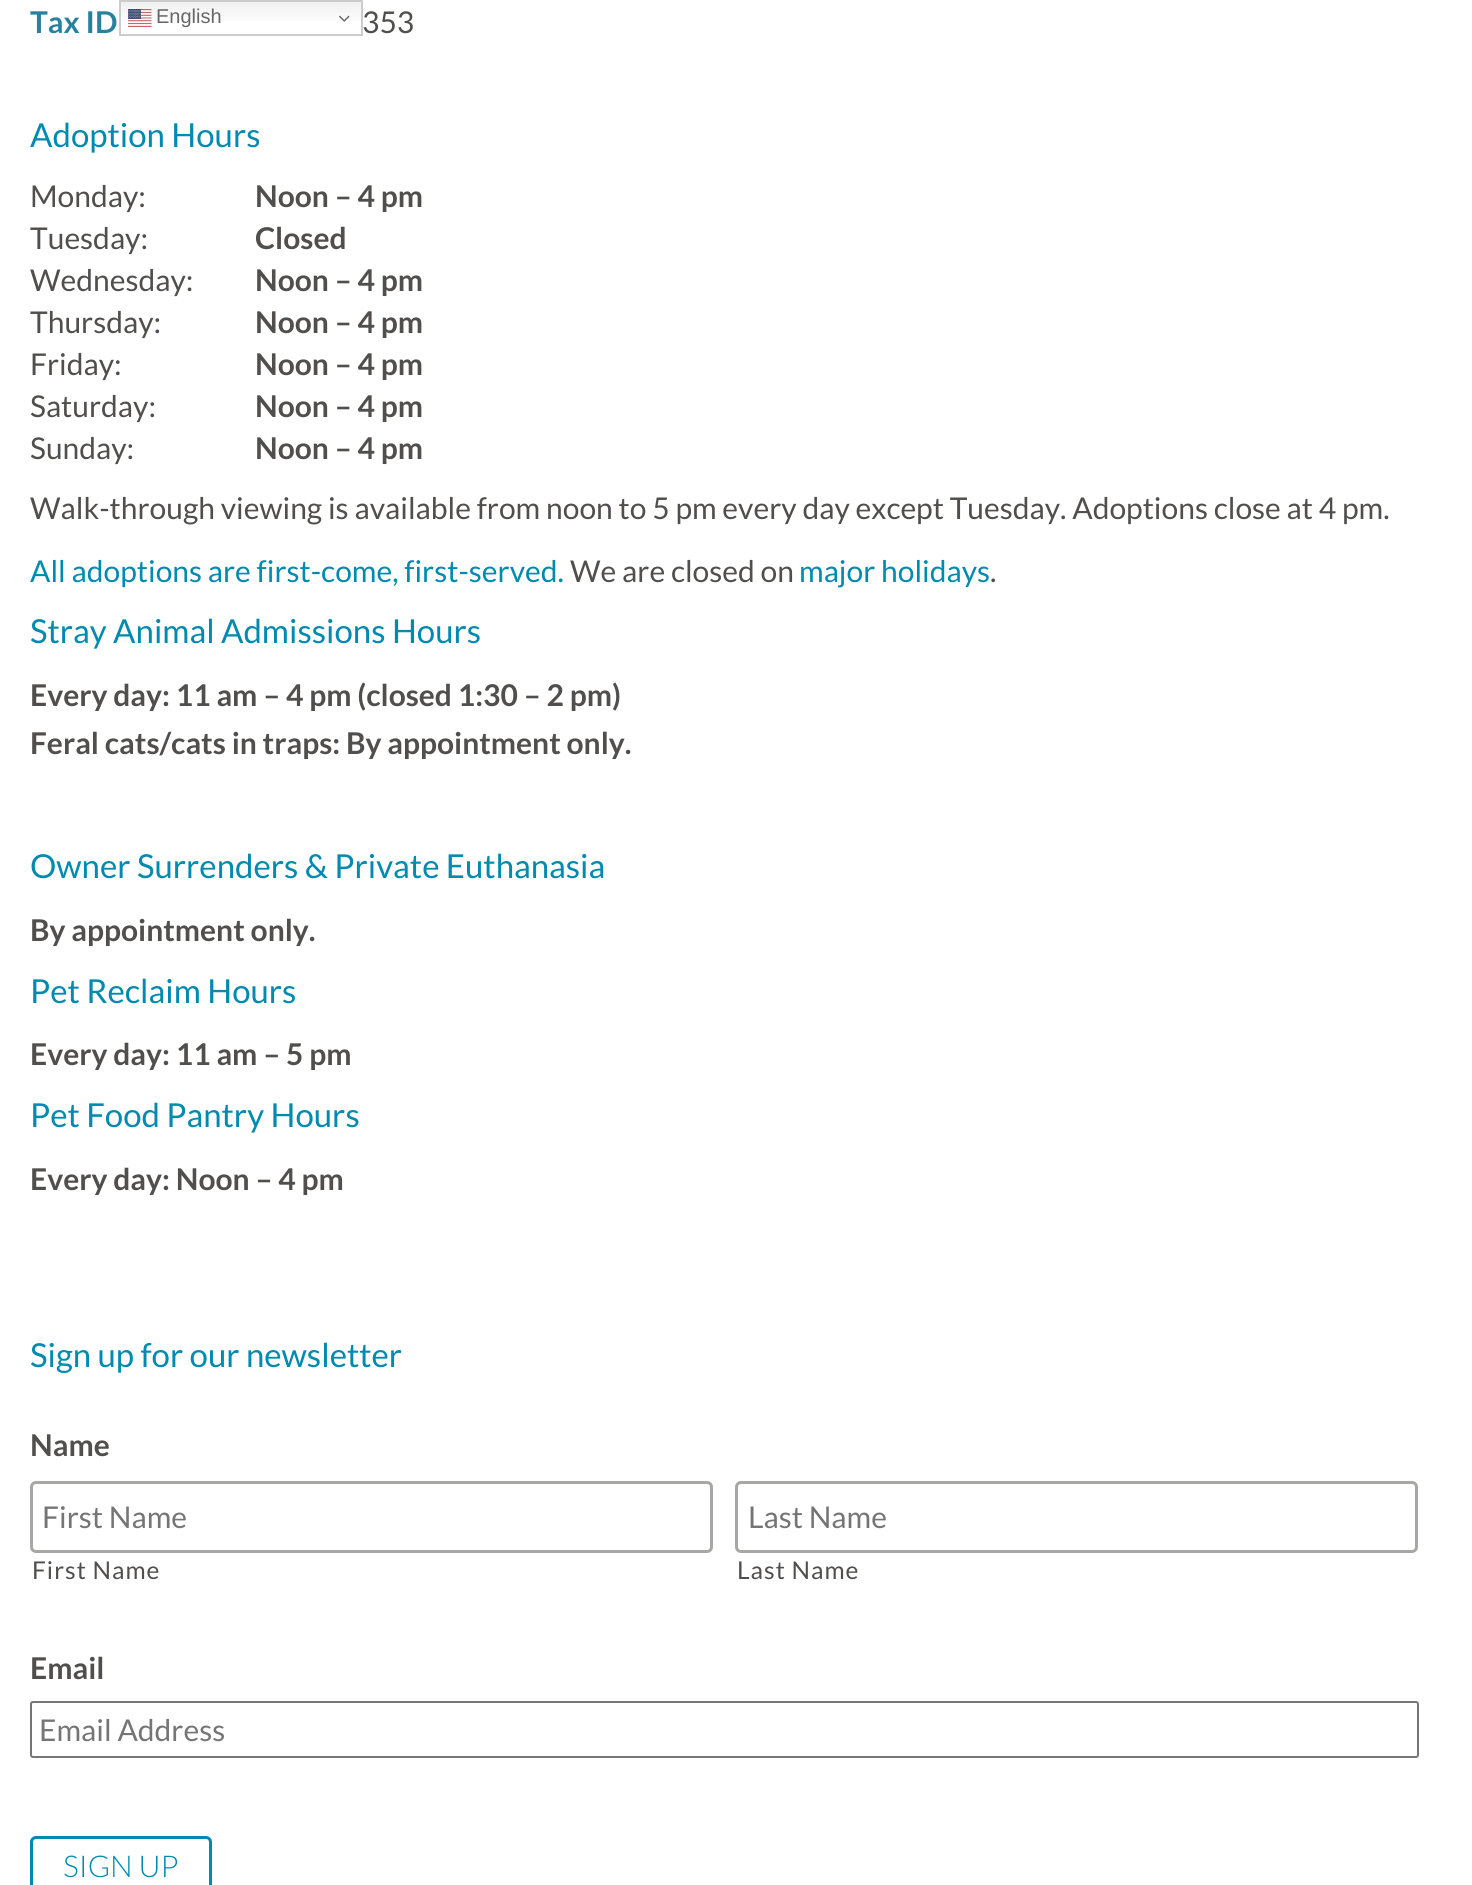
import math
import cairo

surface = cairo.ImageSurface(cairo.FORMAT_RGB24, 1472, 1885)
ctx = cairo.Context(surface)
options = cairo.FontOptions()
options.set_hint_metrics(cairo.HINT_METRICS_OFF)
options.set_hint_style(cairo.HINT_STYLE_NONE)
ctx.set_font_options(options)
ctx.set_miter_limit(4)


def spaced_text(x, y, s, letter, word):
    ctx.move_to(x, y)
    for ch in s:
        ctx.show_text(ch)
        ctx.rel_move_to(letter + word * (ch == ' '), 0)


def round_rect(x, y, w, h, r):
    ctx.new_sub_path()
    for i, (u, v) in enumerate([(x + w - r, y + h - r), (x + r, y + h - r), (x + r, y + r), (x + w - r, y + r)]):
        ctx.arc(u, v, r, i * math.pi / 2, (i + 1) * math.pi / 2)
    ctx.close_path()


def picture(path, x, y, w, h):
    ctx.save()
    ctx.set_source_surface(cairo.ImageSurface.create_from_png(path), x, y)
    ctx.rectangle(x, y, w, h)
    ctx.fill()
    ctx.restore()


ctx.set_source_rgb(1, 1, 1)
ctx.paint()
gradient = cairo.LinearGradient(241, 0, 241, 36)
gradient.add_color_stop_rgba(0, 0.937, 0.937, 0.937, 1)
gradient.add_color_stop_rgba(0.7, 1, 1, 1, 1)
ctx.set_source(gradient)
ctx.rectangle(121, 2, 240, 19)
ctx.fill()
ctx.rectangle(120, 1, 242, 34)
ctx.set_source_rgb(0.8, 0.8, 0.8)
ctx.stroke()
picture("img1.png", 128, 9, 24, 18)
ctx.select_font_face("Liberation Sans")
ctx.set_font_size(20)
ctx.set_source_rgb(0.4, 0.4, 0.4)
ctx.move_to(156, 23)
ctx.show_text("English")
picture("img2.png", 339, 15, 11, 7)
ctx.select_font_face("Lato", cairo.FONT_SLANT_NORMAL, cairo.FONT_WEIGHT_BOLD)
ctx.set_font_size(30)
ctx.set_source_rgb(0.157, 0.506, 0.616)
ctx.move_to(30, 33)
ctx.show_text("Tax ID")
ctx.select_font_face("Lato")
ctx.set_source_rgb(0.318, 0.31, 0.306)
ctx.move_to(362, 33)
ctx.show_text("353")
ctx.set_font_size(33)
ctx.set_source_rgb(0, 0.541, 0.69)
ctx.move_to(30, 147)
ctx.show_text("Adoption Hours")
ctx.set_font_size(30)
ctx.set_source_rgb(0.318, 0.31, 0.306)
ctx.move_to(30, 207)
ctx.show_text("Monday:")
ctx.select_font_face("Lato", cairo.FONT_SLANT_NORMAL, cairo.FONT_WEIGHT_BOLD)
ctx.move_to(255, 207)
ctx.show_text("Noon – 4 pm")
ctx.select_font_face("Lato")
ctx.move_to(30, 249)
ctx.show_text("Tuesday:")
ctx.move_to(30, 291)
ctx.show_text("Wednesday:")
ctx.move_to(30, 333)
ctx.show_text("Thursday:")
ctx.move_to(30, 375)
ctx.show_text("Friday:")
ctx.move_to(30, 417)
ctx.show_text("Saturday:")
ctx.move_to(30, 459)
ctx.show_text("Sunday:")
ctx.select_font_face("Lato", cairo.FONT_SLANT_NORMAL, cairo.FONT_WEIGHT_BOLD)
ctx.move_to(255, 249)
ctx.show_text("Closed")
ctx.move_to(255, 291)
ctx.show_text("Noon – 4 pm")
ctx.move_to(255, 333)
ctx.show_text("Noon – 4 pm")
ctx.move_to(255, 375)
ctx.show_text("Noon – 4 pm")
ctx.move_to(255, 417)
ctx.show_text("Noon – 4 pm")
ctx.move_to(255, 459)
ctx.show_text("Noon – 4 pm")
ctx.select_font_face("Lato")
ctx.move_to(30, 519)
ctx.show_text("Walk-through viewing is available from noon to 5 pm every day except Tuesday. Adoptions close at 4 pm.")
ctx.set_source_rgb(0, 0.541, 0.69)
ctx.move_to(30, 582)
ctx.show_text("All adoptions are first-come, first-served.")
ctx.set_source_rgb(0.318, 0.31, 0.306)
ctx.move_to(570, 582)
ctx.show_text("We are closed on")
ctx.set_source_rgb(0, 0.541, 0.69)
ctx.move_to(799, 582)
ctx.show_text("major holidays")
ctx.set_source_rgb(0.318, 0.31, 0.306)
ctx.move_to(990, 582)
ctx.show_text(".")
ctx.set_font_size(33)
ctx.set_source_rgb(0, 0.541, 0.69)
ctx.move_to(30, 643)
ctx.show_text("Stray Animal Admissions Hours")
ctx.select_font_face("Lato", cairo.FONT_SLANT_NORMAL, cairo.FONT_WEIGHT_BOLD)
ctx.set_font_size(30)
ctx.set_source_rgb(0.318, 0.31, 0.306)
ctx.move_to(30, 706)
ctx.show_text("Every day: 11 am – 4 pm (closed 1:30 – 2 pm)")
ctx.move_to(30, 754)
ctx.show_text("Feral cats/cats in traps: By appointment only.")
ctx.select_font_face("Lato")
ctx.set_font_size(33)
ctx.set_source_rgb(0, 0.541, 0.69)
ctx.move_to(30, 878)
ctx.show_text("Owner Surrenders & Private Euthanasia")
ctx.select_font_face("Lato", cairo.FONT_SLANT_NORMAL, cairo.FONT_WEIGHT_BOLD)
ctx.set_font_size(30)
ctx.set_source_rgb(0.318, 0.31, 0.306)
ctx.move_to(30, 941)
ctx.show_text("By appointment only.")
ctx.select_font_face("Lato")
ctx.set_font_size(33)
ctx.set_source_rgb(0, 0.541, 0.69)
ctx.move_to(30, 1003)
ctx.show_text("Pet Reclaim Hours")
ctx.select_font_face("Lato", cairo.FONT_SLANT_NORMAL, cairo.FONT_WEIGHT_BOLD)
ctx.set_font_size(30)
ctx.set_source_rgb(0.318, 0.31, 0.306)
ctx.move_to(30, 1065)
ctx.show_text("Every day: 11 am – 5 pm")
ctx.select_font_face("Lato")
ctx.set_font_size(33)
ctx.set_source_rgb(0, 0.541, 0.69)
ctx.move_to(30, 1127)
ctx.show_text("Pet Food Pantry Hours")
ctx.select_font_face("Lato", cairo.FONT_SLANT_NORMAL, cairo.FONT_WEIGHT_BOLD)
ctx.set_font_size(30)
ctx.set_source_rgb(0.318, 0.31, 0.306)
ctx.move_to(30, 1190)
ctx.show_text("Every day: Noon – 4 pm")
ctx.select_font_face("Lato")
ctx.set_font_size(33)
ctx.set_source_rgb(0, 0.541, 0.69)
ctx.move_to(30, 1367)
ctx.show_text("Sign up for our newsletter")
ctx.select_font_face("Lato", cairo.FONT_SLANT_NORMAL, cairo.FONT_WEIGHT_BOLD)
ctx.set_font_size(30)
ctx.set_source_rgb(0.318, 0.31, 0.306)
ctx.move_to(30, 1456)
ctx.show_text("Name")
round_rect(31.5, 1482.5, 680, 69, 4.5)
ctx.set_source_rgb(0.655, 0.655, 0.651)
ctx.set_line_width(3)
ctx.stroke()
ctx.select_font_face("Lato")
ctx.set_source_rgb(0.459, 0.459, 0.459)
ctx.move_to(42, 1528)
ctx.show_text("First Name")
ctx.set_font_size(24.5)
ctx.set_source_rgb(0.318, 0.31, 0.306)
spaced_text(32, 1579, "First Name", 1, 0)
round_rect(736.5, 1482.5, 680, 69, 4.5)
ctx.set_source_rgb(0.655, 0.655, 0.651)
ctx.stroke()
ctx.set_font_size(30)
ctx.set_source_rgb(0.459, 0.459, 0.459)
ctx.move_to(748, 1528)
ctx.show_text("Last Name")
ctx.set_font_size(24.5)
ctx.set_source_rgb(0.318, 0.31, 0.306)
spaced_text(737, 1579, "Last Name", 1, 0)
ctx.select_font_face("Lato", cairo.FONT_SLANT_NORMAL, cairo.FONT_WEIGHT_BOLD)
ctx.set_font_size(30)
ctx.move_to(30, 1679)
ctx.show_text("Email")
round_rect(31, 1702, 1387, 55, 2)
ctx.set_source_rgb(0.463, 0.463, 0.463)
ctx.set_line_width(2)
ctx.stroke()
ctx.select_font_face("Lato")
ctx.set_source_rgb(0.459, 0.459, 0.459)
ctx.move_to(39, 1741)
ctx.show_text("Email Address")
round_rect(31.5, 1837.5, 179, 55, 4.5)
ctx.set_source_rgb(0, 0.541, 0.69)
ctx.set_line_width(3)
ctx.stroke()
ctx.select_font_face("Lato Light")
ctx.move_to(63, 1877)
ctx.show_text("SIGN UP")
surface.write_to_png("page.png")
